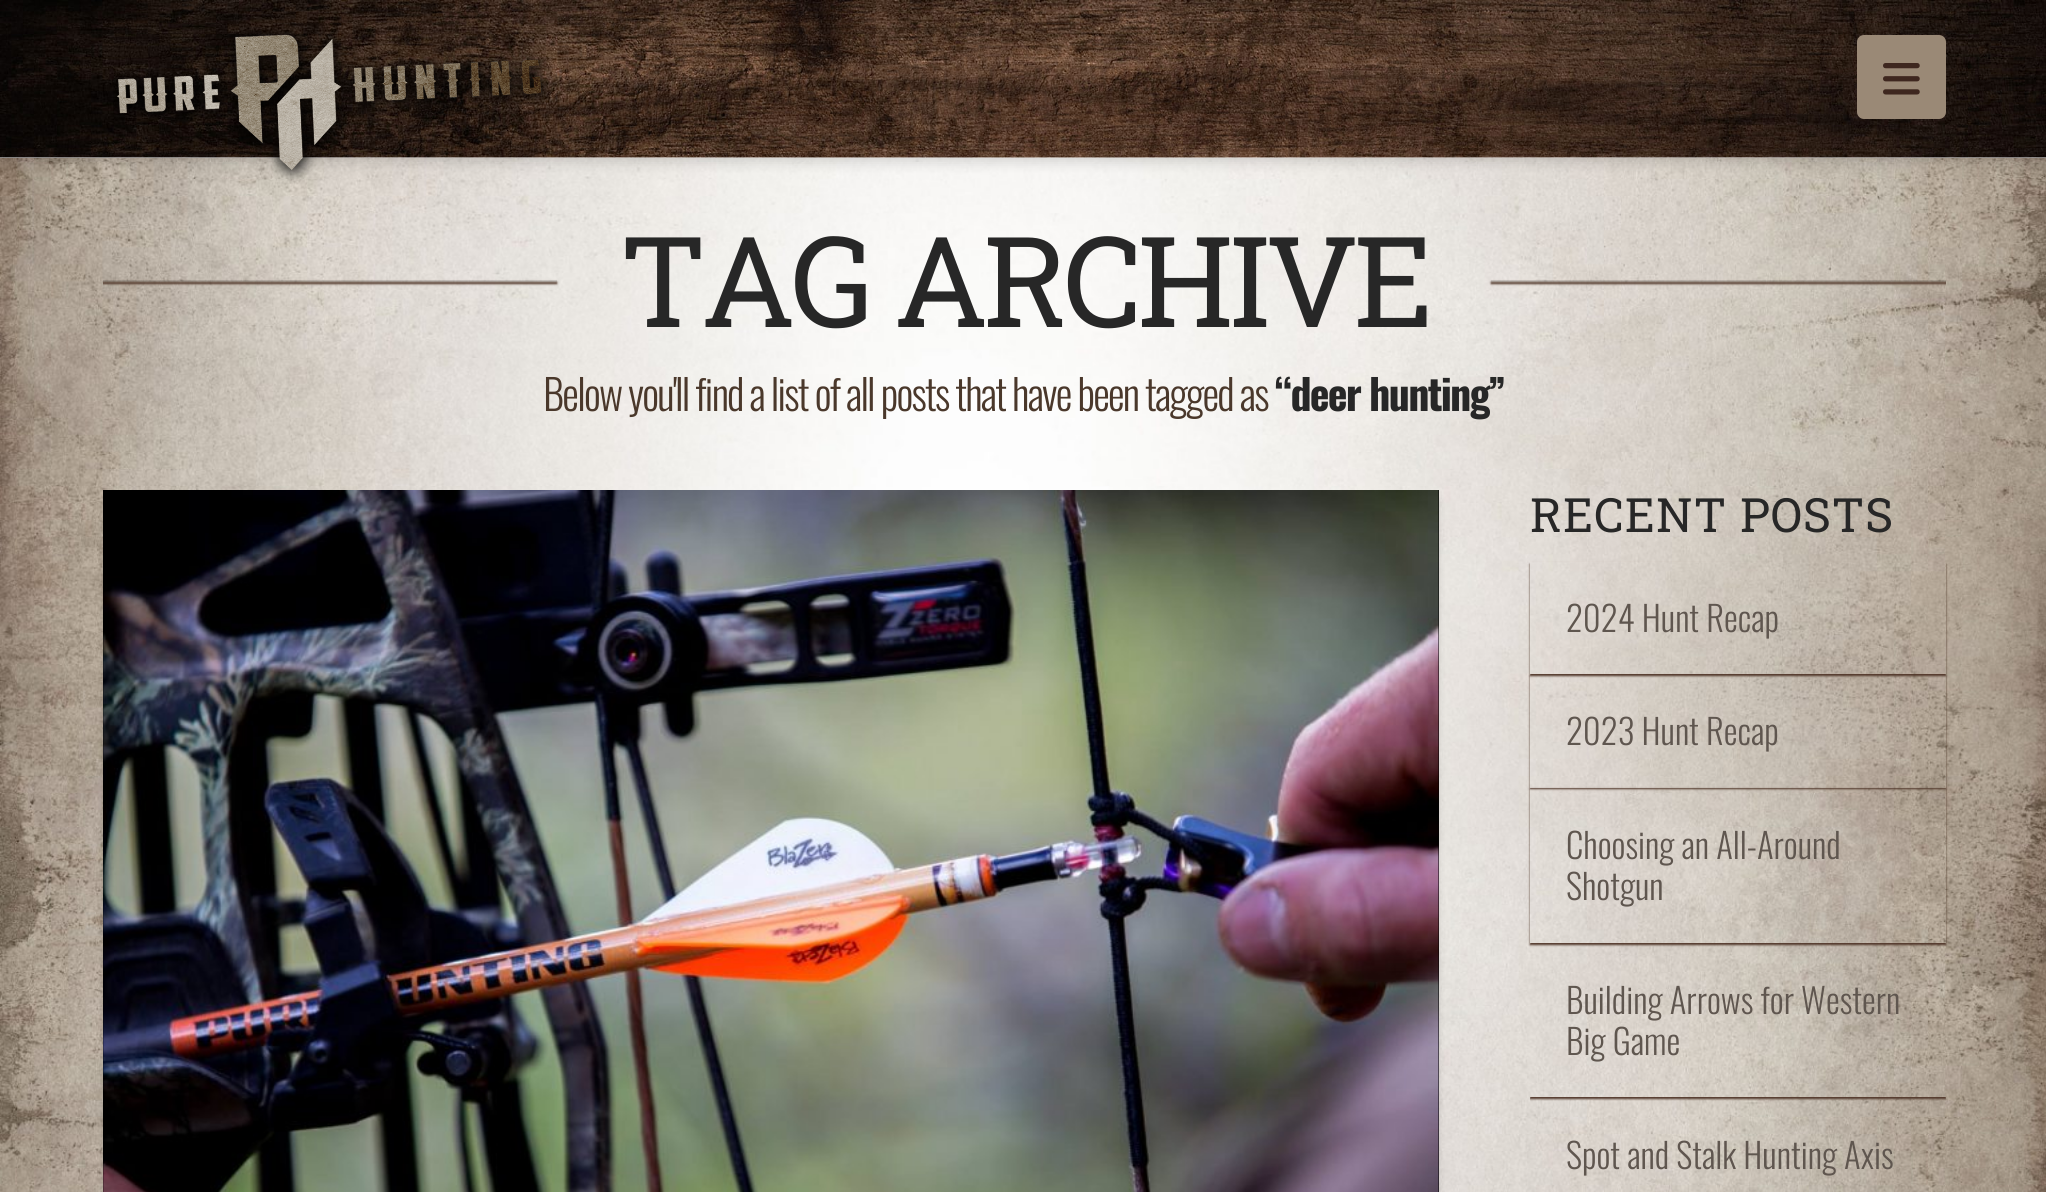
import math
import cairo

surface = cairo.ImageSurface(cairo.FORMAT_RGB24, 2046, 1192)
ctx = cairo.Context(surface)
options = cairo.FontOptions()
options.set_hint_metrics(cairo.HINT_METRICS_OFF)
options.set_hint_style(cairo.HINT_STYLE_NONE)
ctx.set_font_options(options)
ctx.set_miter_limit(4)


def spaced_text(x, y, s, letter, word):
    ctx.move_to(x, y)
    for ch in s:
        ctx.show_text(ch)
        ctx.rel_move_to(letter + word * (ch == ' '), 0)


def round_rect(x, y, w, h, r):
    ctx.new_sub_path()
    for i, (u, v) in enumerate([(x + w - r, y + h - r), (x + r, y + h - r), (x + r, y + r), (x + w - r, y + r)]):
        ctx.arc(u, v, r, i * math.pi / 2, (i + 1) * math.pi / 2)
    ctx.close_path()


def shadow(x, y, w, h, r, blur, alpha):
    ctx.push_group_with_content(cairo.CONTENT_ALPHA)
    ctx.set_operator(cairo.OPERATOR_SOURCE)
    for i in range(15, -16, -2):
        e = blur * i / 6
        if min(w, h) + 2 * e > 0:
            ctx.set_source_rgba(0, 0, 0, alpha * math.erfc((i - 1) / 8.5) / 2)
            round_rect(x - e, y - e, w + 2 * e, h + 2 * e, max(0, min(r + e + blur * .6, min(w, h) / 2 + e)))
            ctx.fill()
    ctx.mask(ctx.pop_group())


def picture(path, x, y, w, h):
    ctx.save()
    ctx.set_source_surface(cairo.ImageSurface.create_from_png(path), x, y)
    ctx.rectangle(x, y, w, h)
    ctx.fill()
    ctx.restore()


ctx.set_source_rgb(1, 1, 1)
ctx.paint()
picture("img1.png", 0, 158, 2046, 1034)
ctx.set_source_rgb(0, 0, 0)
shadow(0, 5, 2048, 158, 0, 5.5, 0.13)
ctx.set_source_rgb(1, 1, 1)
ctx.rectangle(0, 157, 2046, 1)
ctx.fill()
picture("img2.png", 0, 0, 2046, 158)
picture("img3.png", 113, 27, 441, 157)
ctx.set_source_rgb(0.604, 0.537, 0.463)
round_rect(1857, 35, 89, 84, 7)
ctx.fill()
picture("img4.png", 1883, 63, 37, 32)
ctx.save()
ctx.rectangle(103, 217, 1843, 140)
ctx.clip()
ctx.set_source_rgb(0.318, 0.216, 0.165)
shadow(-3, 282, 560, 2, 0, 1, 1)
ctx.restore()
ctx.set_source_rgba(0, 0, 0, 0.1)
ctx.rectangle(103, 280, 454, 2)
ctx.fill()
ctx.select_font_face("Roboto Slab")
ctx.set_font_size(126)
ctx.set_source_rgb(0.153, 0.153, 0.153)
spaced_text(620, 327, "TAG ARCHIVE", -5.25, 0)
ctx.save()
ctx.rectangle(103, 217, 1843, 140)
ctx.clip()
ctx.set_source_rgb(0.318, 0.216, 0.165)
shadow(1491, 282, 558, 2, 0, 1, 1)
ctx.restore()
ctx.set_source_rgba(0, 0, 0, 0.1)
ctx.rectangle(1491, 280, 455, 2)
ctx.fill()
ctx.select_font_face("Oswald Light")
ctx.set_font_size(42)
ctx.set_source_rgb(0.29, 0.22, 0.169)
spaced_text(543, 411, "Below you'll find a list of all posts that have been tagged as", -1.75, 0)
ctx.select_font_face("Oswald", cairo.FONT_SLANT_NORMAL, cairo.FONT_WEIGHT_BOLD)
ctx.set_source_rgb(0.153, 0.153, 0.153)
spaced_text(1275, 411, "“deer hunting”", -1.75, 0)
ctx.set_source_rgb(0, 0, 0)
shadow(103, 501, 1322, 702, 0, 3.5, 0.13)
shadow(117, 501, 1322, 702, 0, 3.5, 0.13)
ctx.set_source_rgb(0, 0, 0)
ctx.rectangle(103, 490, 1336, 702)
ctx.fill()
picture("img5.png", 103, 490, 1336, 702)
ctx.select_font_face("Roboto Slab")
ctx.set_font_size(47.25)
ctx.set_source_rgb(0.153, 0.153, 0.153)
spaced_text(1530, 532, "RECENT POSTS", 1, 0)
ctx.save()
ctx.set_fill_rule(cairo.FILL_RULE_EVEN_ODD)
ctx.new_path()
ctx.move_to(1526, 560)
ctx.line_to(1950, 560)
ctx.line_to(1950, 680)
ctx.line_to(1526, 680)
ctx.close_path()
ctx.move_to(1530, 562)
ctx.line_to(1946, 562)
ctx.line_to(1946, 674)
ctx.line_to(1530, 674)
ctx.close_path()
ctx.clip()
ctx.set_source_rgb(0.318, 0.216, 0.165)
shadow(1530, 564, 416, 112, 0, 1, 1)
ctx.restore()
ctx.select_font_face("Oswald Light")
ctx.set_font_size(34.75)
ctx.set_source_rgb(0.373, 0.337, 0.31)
ctx.move_to(1566, 632)
ctx.show_text("2024 Hunt Recap")
ctx.save()
ctx.set_fill_rule(cairo.FILL_RULE_EVEN_ODD)
ctx.new_path()
ctx.move_to(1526, 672)
ctx.line_to(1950, 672)
ctx.line_to(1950, 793)
ctx.line_to(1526, 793)
ctx.close_path()
ctx.move_to(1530, 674)
ctx.line_to(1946, 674)
ctx.line_to(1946, 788)
ctx.line_to(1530, 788)
ctx.close_path()
ctx.clip()
ctx.set_source_rgb(0.318, 0.216, 0.165)
shadow(1530, 676, 416, 113, 0, 1, 1)
ctx.restore()
ctx.move_to(1566, 745)
ctx.show_text("2023 Hunt Recap")
ctx.save()
ctx.set_fill_rule(cairo.FILL_RULE_EVEN_ODD)
ctx.new_path()
ctx.move_to(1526, 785)
ctx.line_to(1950, 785)
ctx.line_to(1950, 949)
ctx.line_to(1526, 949)
ctx.close_path()
ctx.move_to(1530, 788)
ctx.line_to(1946, 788)
ctx.line_to(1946, 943)
ctx.line_to(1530, 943)
ctx.close_path()
ctx.clip()
ctx.set_source_rgb(0.318, 0.216, 0.165)
shadow(1530, 789, 416, 156, 0, 1, 1)
ctx.restore()
ctx.move_to(1566, 859)
ctx.show_text("Choosing an All-Around")
ctx.move_to(1566, 900)
ctx.show_text("Shotgun")
ctx.save()
ctx.rectangle(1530, 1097, 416, 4)
ctx.clip()
ctx.set_source_rgb(0.318, 0.216, 0.165)
shadow(1530, 945, 416, 154, 0, 1, 1)
ctx.restore()
ctx.move_to(1566, 1014)
ctx.show_text("Building Arrows for Western")
ctx.move_to(1566, 1055)
ctx.show_text("Big Game")
ctx.move_to(1566, 1169)
ctx.show_text("Spot and Stalk Hunting Axis")
surface.write_to_png("page.png")
